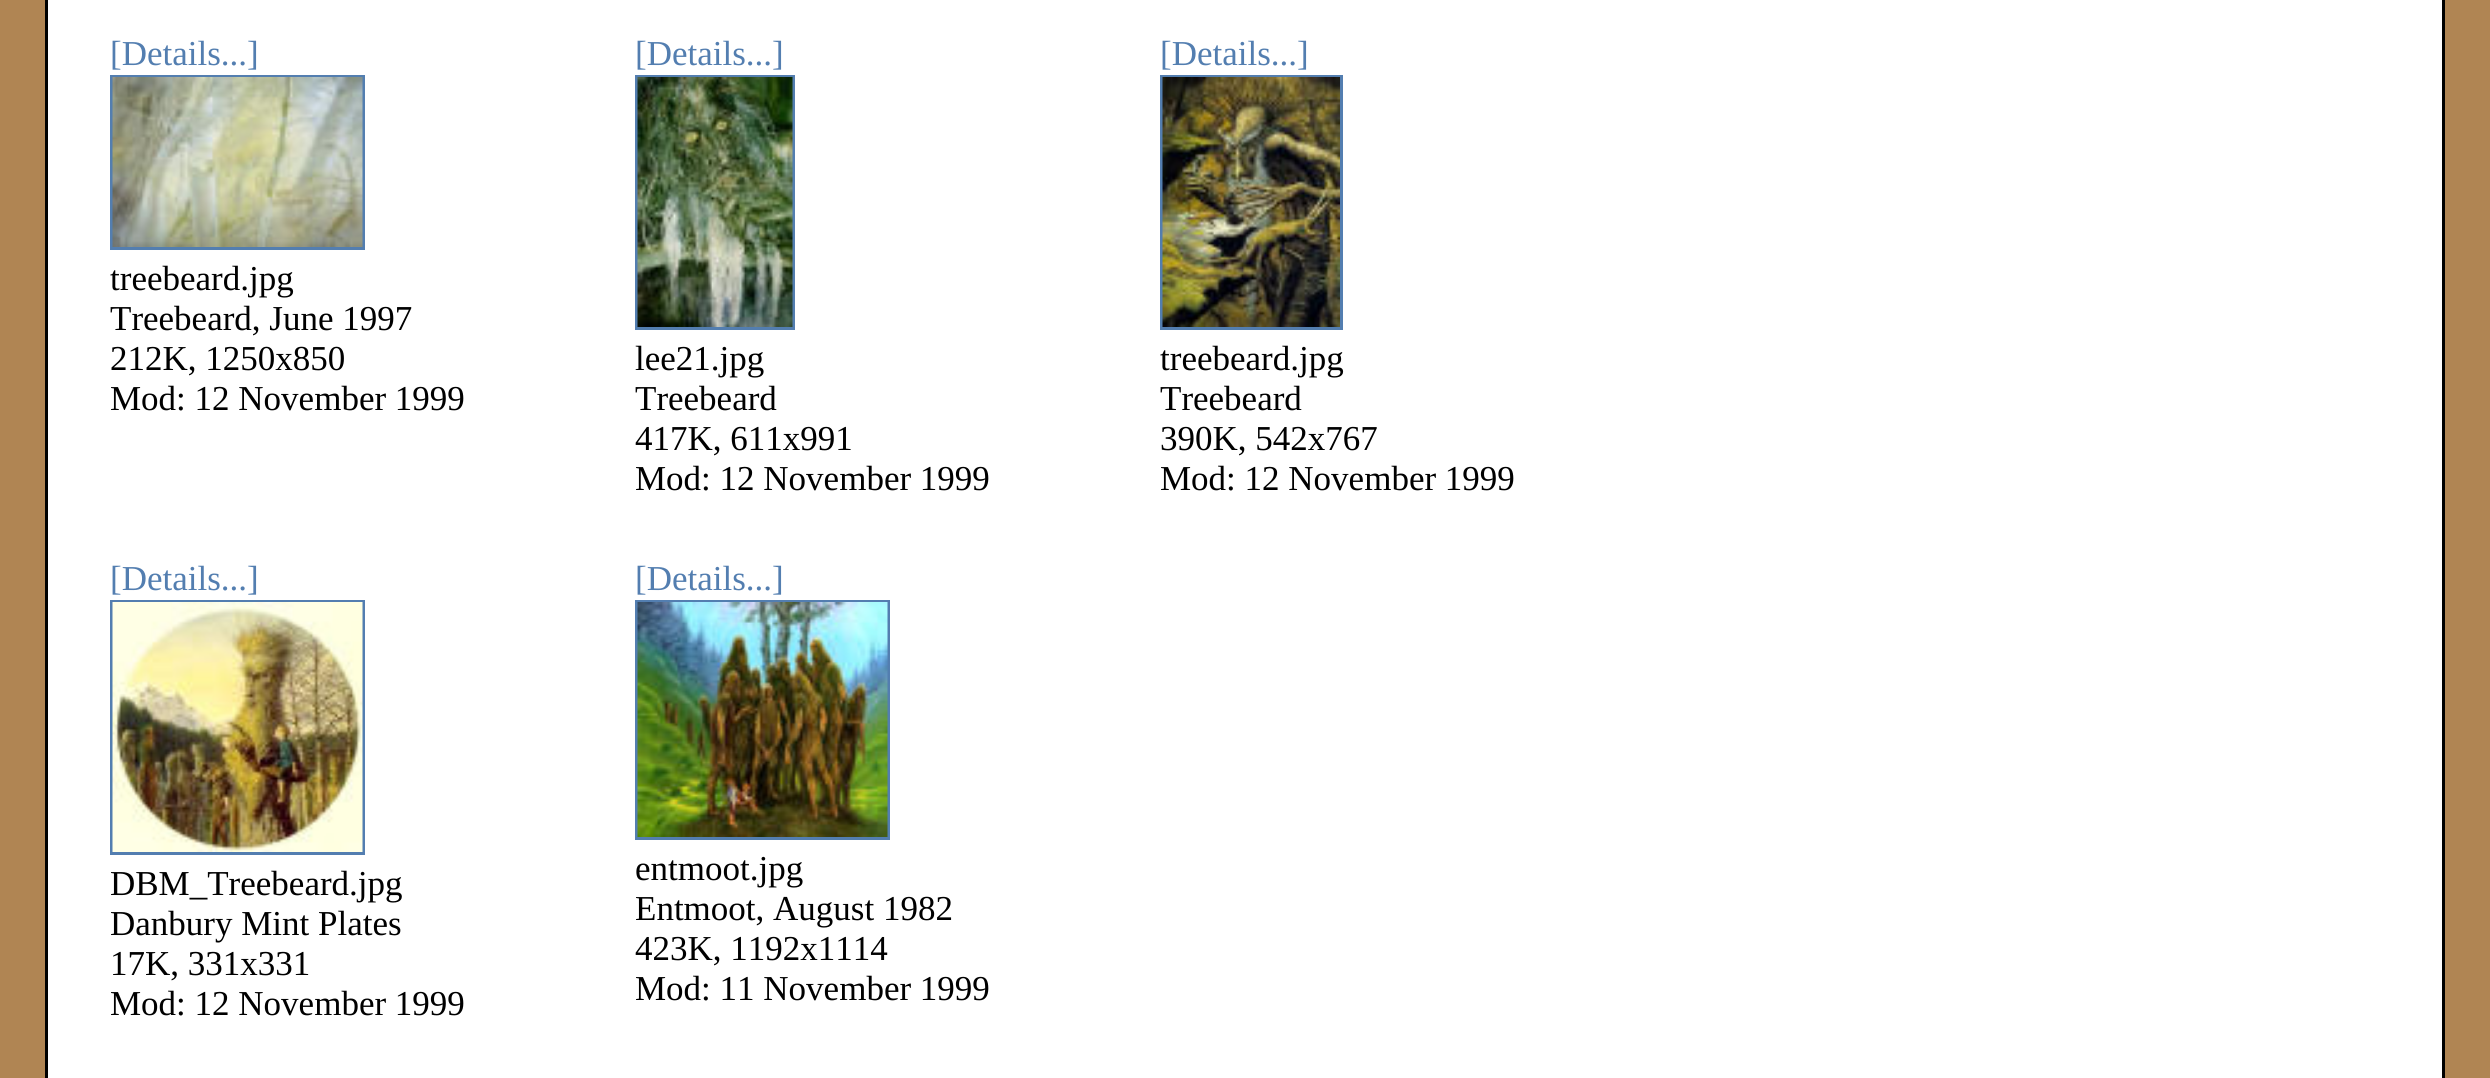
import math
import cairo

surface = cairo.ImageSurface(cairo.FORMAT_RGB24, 2490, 1078)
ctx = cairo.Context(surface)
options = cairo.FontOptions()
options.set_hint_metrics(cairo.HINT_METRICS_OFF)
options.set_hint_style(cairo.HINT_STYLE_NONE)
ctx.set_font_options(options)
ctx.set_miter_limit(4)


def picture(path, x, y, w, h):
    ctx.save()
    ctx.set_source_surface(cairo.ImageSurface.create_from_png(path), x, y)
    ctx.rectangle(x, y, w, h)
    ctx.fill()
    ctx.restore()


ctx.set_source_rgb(0.69, 0.522, 0.325)
ctx.paint()
ctx.set_source_rgb(1, 1, 1)
ctx.rectangle(46.5, -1.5, 2397, 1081)
ctx.fill_preserve()
ctx.set_source_rgb(0, 0, 0)
ctx.set_line_width(3)
ctx.stroke()
ctx.select_font_face("Liberation Serif")
ctx.set_font_size(35)
ctx.set_source_rgb(0.325, 0.494, 0.69)
ctx.move_to(110, 65)
ctx.show_text("[Details...]")
ctx.rectangle(111.5, 76.5, 252, 172)
ctx.stroke()
picture("img1.png", 112, 77, 251, 170)
ctx.set_source_rgb(0, 0, 0)
ctx.move_to(110, 290)
ctx.show_text("treebeard.jpg")
ctx.move_to(110, 330)
ctx.show_text("Treebeard, June 1997")
ctx.move_to(110, 370)
ctx.show_text("212K, 1250x850")
ctx.move_to(110, 410)
ctx.show_text("Mod: 12 November 1999")
ctx.set_source_rgb(0.325, 0.494, 0.69)
ctx.move_to(635, 65)
ctx.show_text("[Details...]")
ctx.rectangle(636.5, 76.5, 157, 252)
ctx.stroke()
picture("img2.png", 637, 77, 156, 250)
ctx.set_source_rgb(0, 0, 0)
ctx.move_to(635, 370)
ctx.show_text("lee21.jpg")
ctx.move_to(635, 410)
ctx.show_text("Treebeard")
ctx.move_to(635, 450)
ctx.show_text("417K, 611x991")
ctx.move_to(635, 490)
ctx.show_text("Mod: 12 November 1999")
ctx.set_source_rgb(0.325, 0.494, 0.69)
ctx.move_to(1160, 65)
ctx.show_text("[Details...]")
ctx.rectangle(1161.5, 76.5, 180, 252)
ctx.stroke()
picture("img3.png", 1162, 77, 178, 250)
ctx.set_source_rgb(0, 0, 0)
ctx.move_to(1160, 370)
ctx.show_text("treebeard.jpg")
ctx.move_to(1160, 410)
ctx.show_text("Treebeard")
ctx.move_to(1160, 450)
ctx.show_text("390K, 542x767")
ctx.move_to(1160, 490)
ctx.show_text("Mod: 12 November 1999")
ctx.set_source_rgb(0.325, 0.494, 0.69)
ctx.move_to(110, 590)
ctx.show_text("[Details...]")
ctx.rectangle(111.5, 601.5, 252, 252)
ctx.stroke()
picture("img4.png", 112, 602, 251, 250)
ctx.set_source_rgb(0, 0, 0)
ctx.move_to(110, 895)
ctx.show_text("DBM_Treebeard.jpg")
ctx.move_to(110, 935)
ctx.show_text("Danbury Mint Plates")
ctx.move_to(110, 975)
ctx.show_text("17K, 331x331")
ctx.move_to(110, 1015)
ctx.show_text("Mod: 12 November 1999")
ctx.set_source_rgb(0.325, 0.494, 0.69)
ctx.move_to(635, 590)
ctx.show_text("[Details...]")
ctx.rectangle(636.5, 601.5, 252, 237)
ctx.stroke()
picture("img5.png", 637, 602, 251, 235)
ctx.set_source_rgb(0, 0, 0)
ctx.move_to(635, 880)
ctx.show_text("entmoot.jpg")
ctx.move_to(635, 920)
ctx.show_text("Entmoot, August 1982")
ctx.move_to(635, 960)
ctx.show_text("423K, 1192x1114")
ctx.move_to(635, 1000)
ctx.show_text("Mod: 11 November 1999")
surface.write_to_png("page.png")
